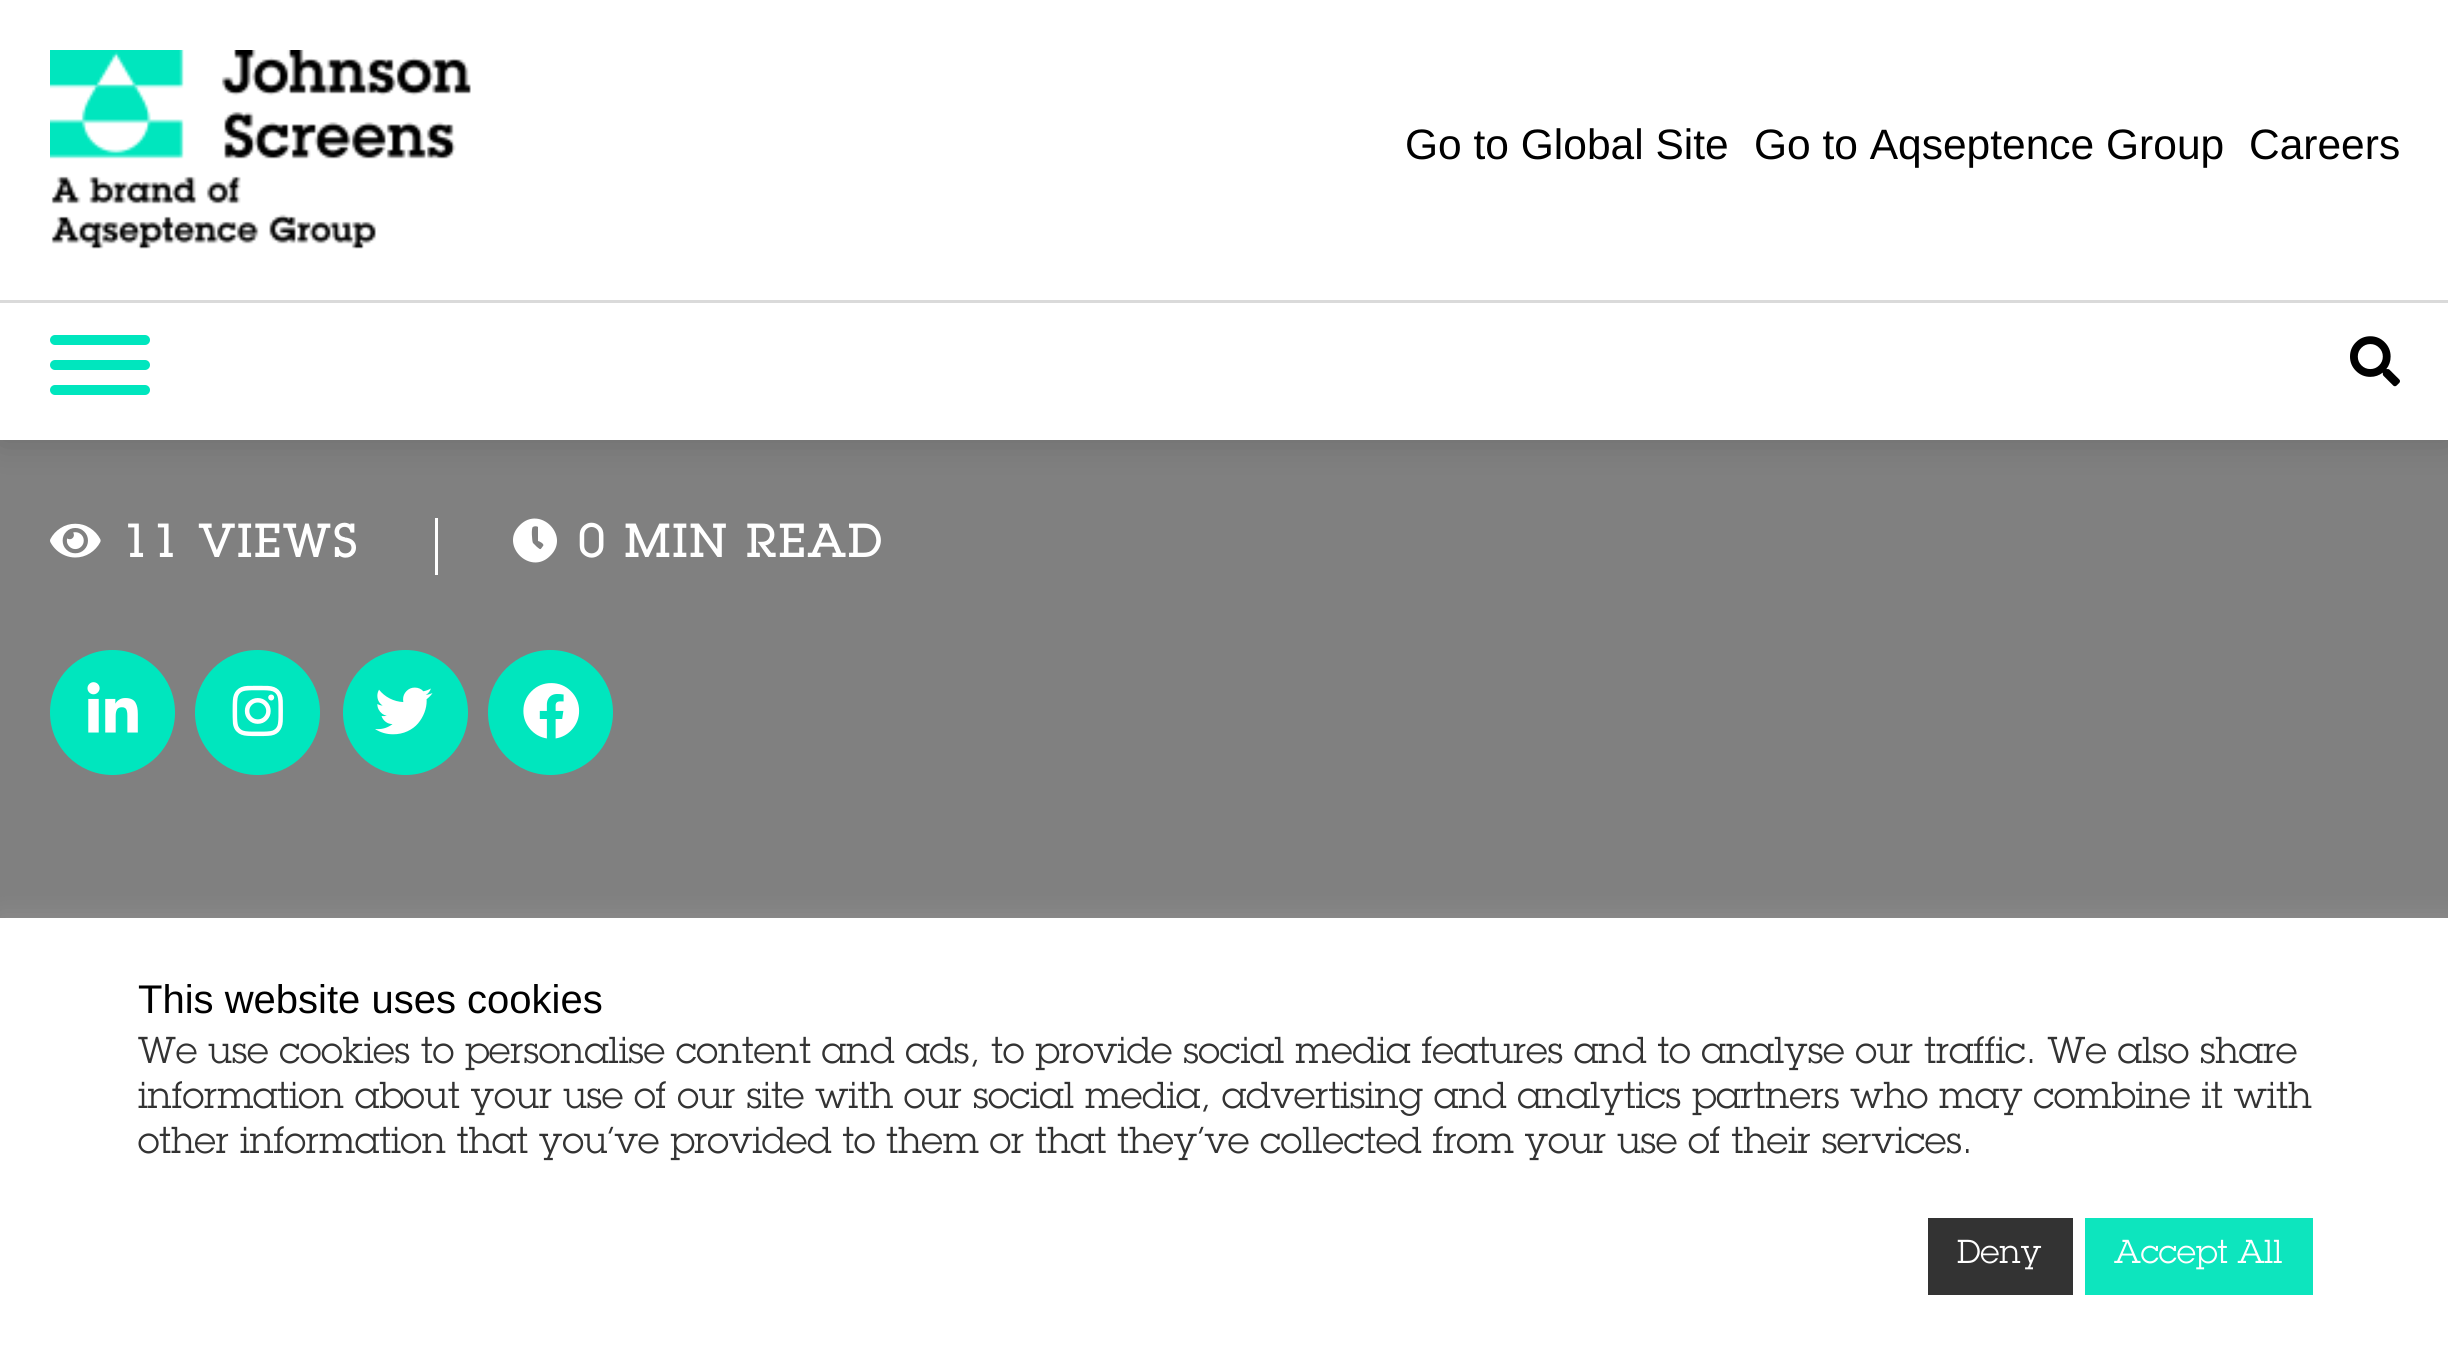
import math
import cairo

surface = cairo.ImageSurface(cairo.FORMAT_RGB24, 2448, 1370)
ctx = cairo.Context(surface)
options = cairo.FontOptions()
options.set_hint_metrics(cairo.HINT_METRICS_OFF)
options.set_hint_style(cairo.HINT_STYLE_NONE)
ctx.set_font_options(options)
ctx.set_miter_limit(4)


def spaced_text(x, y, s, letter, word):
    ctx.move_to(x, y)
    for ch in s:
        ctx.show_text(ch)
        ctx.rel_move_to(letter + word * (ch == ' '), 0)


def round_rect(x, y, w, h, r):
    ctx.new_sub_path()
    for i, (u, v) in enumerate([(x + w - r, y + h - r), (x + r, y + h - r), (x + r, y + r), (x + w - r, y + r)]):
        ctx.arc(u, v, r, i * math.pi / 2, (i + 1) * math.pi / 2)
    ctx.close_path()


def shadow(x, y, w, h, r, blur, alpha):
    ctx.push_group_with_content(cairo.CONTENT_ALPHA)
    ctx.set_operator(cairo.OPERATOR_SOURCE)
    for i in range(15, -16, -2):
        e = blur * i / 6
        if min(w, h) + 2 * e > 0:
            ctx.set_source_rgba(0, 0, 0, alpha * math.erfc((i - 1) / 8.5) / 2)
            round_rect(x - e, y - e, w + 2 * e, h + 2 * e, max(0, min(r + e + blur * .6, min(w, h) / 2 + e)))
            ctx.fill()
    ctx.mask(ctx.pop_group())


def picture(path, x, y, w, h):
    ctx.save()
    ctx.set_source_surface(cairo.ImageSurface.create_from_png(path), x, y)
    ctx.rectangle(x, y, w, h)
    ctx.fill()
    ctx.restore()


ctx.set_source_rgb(0.502, 0.502, 0.502)
ctx.paint()
ctx.set_source_rgb(0, 0, 0)
shadow(0, 0, 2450, 440, 0, 19, 0.16)
ctx.set_source_rgb(1, 1, 1)
ctx.rectangle(0, 0, 2448, 440)
ctx.fill()
ctx.set_source_rgb(0.855, 0.855, 0.855)
ctx.rectangle(0, 300, 2448, 3)
ctx.fill()
picture("img1.png", 50, 50, 421, 199)
ctx.select_font_face("Liberation Sans")
ctx.set_font_size(42.5)
ctx.set_source_rgb(0, 0, 0)
ctx.move_to(1405, 159)
ctx.show_text("Go to Global Site")
ctx.move_to(1754, 159)
ctx.show_text("Go to Aqseptence Group")
ctx.move_to(2249, 159)
ctx.show_text("Careers")
ctx.set_source_rgb(0, 0.902, 0.745)
round_rect(50, 360, 100, 10, 5)
ctx.fill()
round_rect(50, 335, 100, 10, 5)
ctx.fill()
round_rect(50, 385, 100, 10, 5)
ctx.fill()
picture("img2.png", 2350, 336, 50, 51)
ctx.set_source_rgb(1, 1, 1)
ctx.rectangle(435, 518, 3, 57)
ctx.fill()
picture("img3.png", 50, 523, 51, 35)
ctx.select_font_face("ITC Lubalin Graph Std", cairo.FONT_SLANT_NORMAL, cairo.FONT_WEIGHT_BOLD)
ctx.set_font_size(45)
spaced_text(122, 557, "11 VIEWS", 3.6, 0)
ctx.new_path()
ctx.move_to(520, 525)
ctx.curve_to(540, 505, 571, 536, 550, 556)
ctx.curve_to(530, 576, 499, 545, 520, 525)
ctx.close_path()
ctx.move_to(543, 546)
ctx.curve_to(545, 544, 539, 541, 538, 541)
ctx.line_to(538, 527)
ctx.curve_to(537, 526, 534, 526, 533, 527)
ctx.curve_to(531, 527, 532, 542, 533, 543)
ctx.line_to(537, 547)
ctx.curve_to(541, 550, 540, 550, 543, 546)
ctx.close_path()
ctx.fill()
spaced_text(578, 557, "0 MIN READ", 3.6, 0)
ctx.set_source_rgb(0, 0.902, 0.745)
ctx.new_path()
ctx.arc(112.5, 712.5, 62.5, 0, 2 * math.pi)
ctx.fill()
picture("img4.png", 87, 682, 51, 51)
ctx.arc(257.5, 712.5, 62.5, 0, 2 * math.pi)
ctx.fill()
picture("img5.png", 232, 685, 51, 52)
ctx.arc(405.5, 712.5, 62.5, 0, 2 * math.pi)
ctx.fill()
picture("img6.png", 375, 687, 58, 48)
ctx.arc(550.5, 712.5, 62.5, 0, 2 * math.pi)
ctx.fill()
picture("img7.png", 523, 683, 57, 56)
ctx.set_source_rgb(0.675, 0.671, 0.671)
shadow(0, 915, 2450, 453, 0, 12.5, 0.3)
ctx.set_source_rgb(1, 1, 1)
ctx.rectangle(0, 918, 2448, 452)
ctx.fill()
ctx.select_font_face("Liberation Sans")
ctx.set_font_size(40)
ctx.set_source_rgb(0, 0, 0)
ctx.move_to(138, 1013)
ctx.show_text("This website uses cookies")
ctx.select_font_face("ITC Lubalin Graph Std")
ctx.set_font_size(36.67)
ctx.set_source_rgb(0.2, 0.2, 0.2)
ctx.move_to(138, 1063)
ctx.show_text("We use cookies to personalise content and ads, to provide social media features and to analyse our traffic. We also share")
ctx.move_to(138, 1108)
ctx.show_text("information about your use of our site with our social media, advertising and analytics partners who may combine it with")
ctx.move_to(138, 1153)
ctx.show_text("other information that you’ve provided to them or that they’ve collected from your use of their services.")
ctx.rectangle(1928, 1218, 145, 77)
ctx.fill()
ctx.set_font_size(32.5)
ctx.set_source_rgb(1, 1, 1)
ctx.move_to(1957, 1263)
ctx.show_text("Deny")
ctx.set_source_rgb(0.051, 0.898, 0.745)
ctx.rectangle(2085, 1218, 228, 77)
ctx.fill()
ctx.set_source_rgb(1, 1, 1)
ctx.move_to(2114, 1263)
ctx.show_text("Accept All")
surface.write_to_png("page.png")
